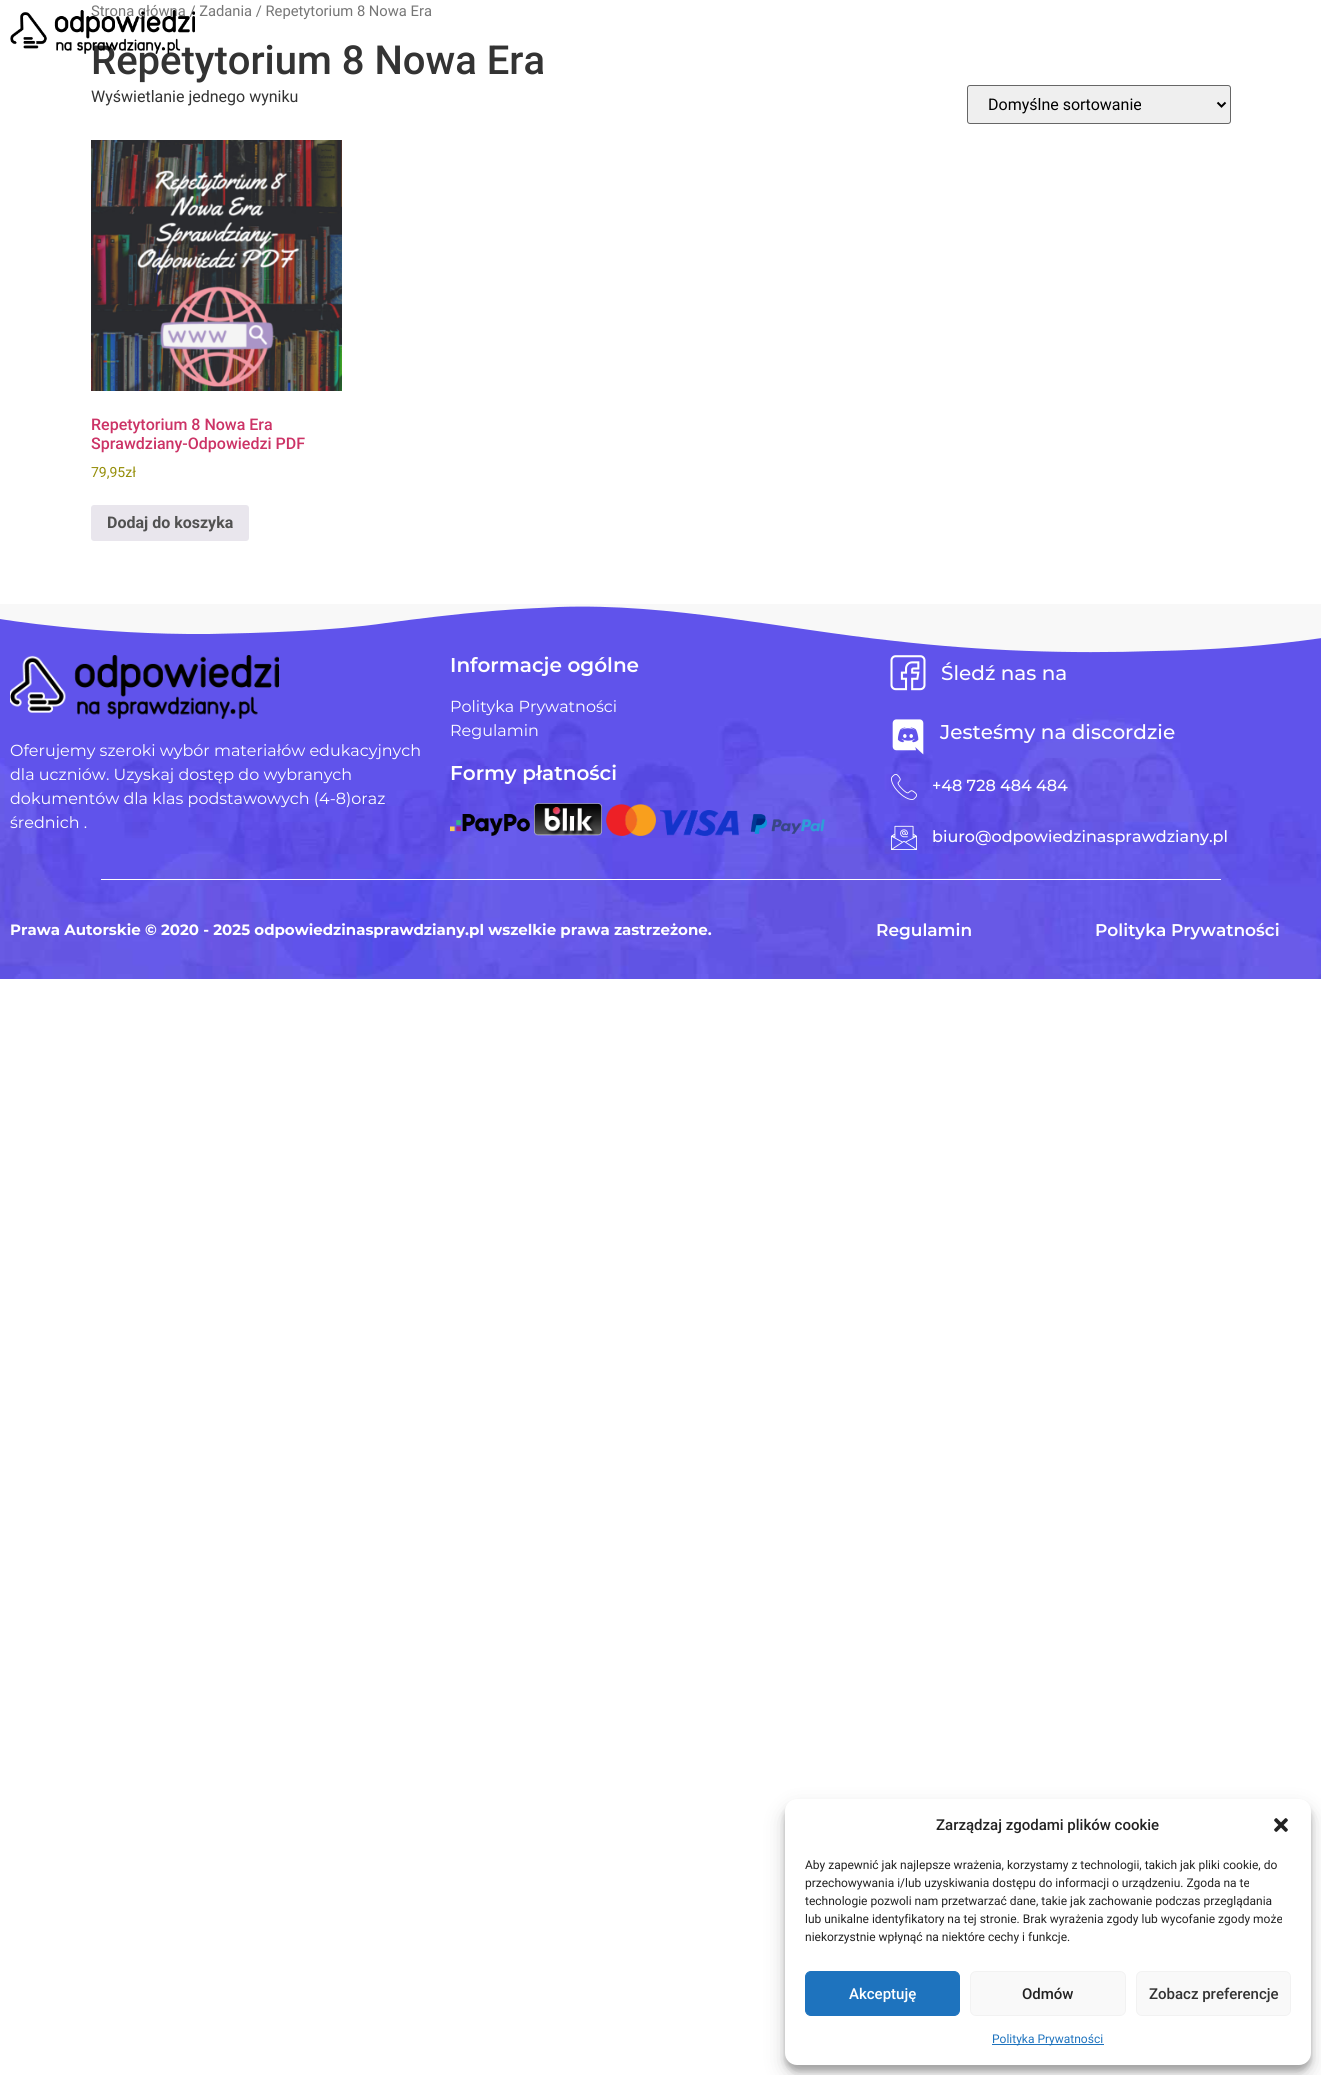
import math
import cairo

surface = cairo.ImageSurface(cairo.FORMAT_RGB24, 1321, 2075)
ctx = cairo.Context(surface)
options = cairo.FontOptions()
options.set_hint_metrics(cairo.HINT_METRICS_OFF)
options.set_hint_style(cairo.HINT_STYLE_NONE)
ctx.set_font_options(options)
ctx.set_miter_limit(4)


def round_rect(x, y, w, h, r):
    ctx.new_sub_path()
    for i, (u, v) in enumerate([(x + w - r, y + h - r), (x + r, y + h - r), (x + r, y + r), (x + w - r, y + r)]):
        ctx.arc(u, v, r, i * math.pi / 2, (i + 1) * math.pi / 2)
    ctx.close_path()


def shadow(x, y, w, h, r, blur, alpha):
    ctx.push_group_with_content(cairo.CONTENT_ALPHA)
    ctx.set_operator(cairo.OPERATOR_SOURCE)
    for i in range(15, -16, -2):
        e = blur * i / 6
        if min(w, h) + 2 * e > 0:
            ctx.set_source_rgba(0, 0, 0, alpha * math.erfc((i - 1) / 8.5) / 2)
            round_rect(x - e, y - e, w + 2 * e, h + 2 * e, max(0, min(r + e + blur * .6, min(w, h) / 2 + e)))
            ctx.fill()
    ctx.mask(ctx.pop_group())


def picture(path, x, y, w, h):
    ctx.save()
    ctx.set_source_surface(cairo.ImageSurface.create_from_png(path), x, y)
    ctx.rectangle(x, y, w, h)
    ctx.fill()
    ctx.restore()


ctx.set_source_rgb(1, 1, 1)
ctx.paint()
ctx.select_font_face("Roboto")
ctx.set_font_size(14.75)
ctx.set_source_rgb(0.463, 0.463, 0.463)
ctx.move_to(91, 16)
ctx.show_text("Strona główna / Zadania / Repetytorium 8 Nowa Era")
ctx.select_font_face("Roboto Medium")
ctx.set_font_size(40)
ctx.set_source_rgb(0.2, 0.2, 0.2)
ctx.move_to(91, 74)
ctx.show_text("Repetytorium 8 Nowa Era")
ctx.select_font_face("Roboto")
ctx.set_font_size(16)
ctx.move_to(91, 102)
ctx.show_text("Wyświetlanie jednego wyniku")
ctx.set_source_rgb(0.937, 0.937, 0.937)
round_rect(967.5, 85.5, 263, 38, 2.5)
ctx.fill_preserve()
ctx.set_source_rgb(0.4, 0.4, 0.4)
ctx.set_line_width(1)
ctx.stroke()
ctx.new_path()
ctx.move_to(1217.5, 102.5)
ctx.line_to(1221.5, 106.5)
ctx.line_to(1225.5, 102.5)
ctx.set_source_rgb(0, 0, 0)
ctx.set_line_width(2)
ctx.stroke()
ctx.move_to(988, 110)
ctx.show_text("Domyślne sortowanie")
picture("img1.png", 91, 140, 251, 251)
ctx.select_font_face("Roboto Medium")
ctx.set_source_rgb(0.8, 0.2, 0.4)
ctx.move_to(91, 430)
ctx.show_text("Repetytorium 8 Nowa Era")
ctx.move_to(91, 449)
ctx.show_text("Sprawdziany-Odpowiedzi PDF")
ctx.select_font_face("Roboto")
ctx.set_font_size(14)
ctx.set_source_rgb(0.584, 0.557, 0.035)
ctx.move_to(91, 477)
ctx.show_text("79,95zł")
ctx.set_source_rgb(0.914, 0.902, 0.929)
round_rect(91, 505, 158, 36, 3)
ctx.fill()
ctx.select_font_face("Roboto", cairo.FONT_SLANT_NORMAL, cairo.FONT_WEIGHT_BOLD)
ctx.set_font_size(16)
ctx.set_source_rgb(0.318, 0.318, 0.318)
ctx.move_to(107, 528)
ctx.show_text("Dodaj do koszyka")
picture("img2.png", 10, 10, 185, 44)
picture("img3.png", 0, 606, 1321, 373)
ctx.set_source_rgb(0.969, 0.969, 0.969)
ctx.new_path()
ctx.move_to(558, 607)
ctx.curve_to(671, 603, 782, 629, 895, 641)
ctx.curve_to(982, 651, 1069, 654, 1156, 651)
ctx.curve_to(1212, 650, 1267, 646, 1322, 638)
ctx.line_to(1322, 604)
ctx.line_to(0, 604)
ctx.line_to(0, 619)
ctx.curve_to(0, 619, 95, 635, 209, 634)
ctx.curve_to(261, 633, 332, 631, 386, 623)
ctx.curve_to(415, 619, 456, 614, 492, 611)
ctx.curve_to(528, 608, 544, 608, 558, 607)
ctx.close_path()
ctx.fill()
picture("img4.png", 10, 655, 269, 64)
ctx.select_font_face("Montserrat")
ctx.set_source_rgb(1, 1, 1)
ctx.move_to(10, 756)
ctx.show_text("Oferujemy szeroki wybór materiałów edukacyjnych")
ctx.move_to(10, 780)
ctx.show_text("dla uczniów. Uzyskaj dostęp do wybranych")
ctx.move_to(10, 804)
ctx.show_text("dokumentów dla klas podstawowych (4-8)oraz")
ctx.move_to(10, 828)
ctx.show_text("średnich .")
ctx.select_font_face("Montserrat SemiBold")
ctx.set_font_size(20)
ctx.move_to(450, 672)
ctx.show_text("Informacje ogólne")
ctx.select_font_face("Montserrat")
ctx.set_font_size(16)
ctx.move_to(450, 712)
ctx.show_text("Polityka Prywatności")
ctx.move_to(450, 736)
ctx.show_text("Regulamin")
ctx.select_font_face("Montserrat SemiBold")
ctx.set_font_size(20)
ctx.move_to(450, 780)
ctx.show_text("Formy płatności")
picture("img5.png", 450, 814, 80, 22)
picture("img6.png", 534, 803, 68, 33)
picture("img7.png", 606, 804, 50, 32)
picture("img8.png", 660, 810, 79, 26)
picture("img9.png", 750, 814, 75, 20)
picture("img10.png", 890, 655, 36, 36)
ctx.select_font_face("Montserrat Medium")
ctx.move_to(941, 680)
ctx.show_text("Śledź nas na")
picture("img11.png", 892, 719, 32, 36)
ctx.move_to(940, 739)
ctx.show_text("Jesteśmy na discordzie")
picture("img12.png", 891, 774, 26, 26)
ctx.set_font_size(16)
ctx.move_to(932, 791)
ctx.show_text("+48 728 484 484")
picture("img13.png", 891, 825, 26, 25)
ctx.move_to(932, 842)
ctx.show_text("biuro@odpowiedzinasprawdziany.pl")
ctx.rectangle(101, 879, 1120, 1)
ctx.fill()
ctx.select_font_face("Montserrat", cairo.FONT_SLANT_NORMAL, cairo.FONT_WEIGHT_BOLD)
ctx.set_font_size(15)
ctx.move_to(10, 935)
ctx.show_text("Prawa Autorskie © 2020 - 2025 odpowiedzinasprawdziany.pl wszelkie prawa zastrzeżone.")
ctx.select_font_face("Montserrat SemiBold")
ctx.set_font_size(17)
ctx.move_to(876, 936)
ctx.show_text("Regulamin")
ctx.move_to(1095, 936)
ctx.show_text("Polityka Prywatności")
ctx.set_source_rgb(0, 0, 0)
shadow(785, 1805, 526, 266, 12, 3, 0.23)
shadow(785, 1809, 526, 266, 12, 10, 0.19)
ctx.set_source_rgb(1, 1, 1)
round_rect(785, 1799, 526, 266, 12)
ctx.fill()
ctx.select_font_face("Roboto Medium")
ctx.set_font_size(15)
ctx.set_source_rgb(0.133, 0.133, 0.133)
ctx.move_to(936, 1830)
ctx.show_text("Zarządzaj zgodami plików cookie")
picture("img14.png", 1274, 1818, 14, 14)
ctx.select_font_face("Roboto")
ctx.set_font_size(12)
ctx.move_to(805, 1869)
ctx.show_text("Aby zapewnić jak najlepsze wrażenia, korzystamy z technologii, takich jak pliki cookie, do")
ctx.move_to(805, 1887)
ctx.show_text("przechowywania i/lub uzyskiwania dostępu do informacji o urządzeniu. Zgoda na te")
ctx.move_to(805, 1905)
ctx.show_text("technologie pozwoli nam przetwarzać dane, takie jak zachowanie podczas przeglądania")
ctx.move_to(805, 1923)
ctx.show_text("lub unikalne identyfikatory na tej stronie. Brak wyrażenia zgody lub wycofanie zgody może")
ctx.move_to(805, 1941)
ctx.show_text("niekorzystnie wpłynąć na niektóre cechy i funkcje.")
ctx.set_source_rgb(0.118, 0.451, 0.745)
round_rect(805.5, 1971.5, 154, 44, 5.5)
ctx.fill_preserve()
ctx.set_line_width(1)
ctx.stroke()
ctx.select_font_face("Roboto Medium")
ctx.set_font_size(15)
ctx.set_source_rgb(1, 1, 1)
ctx.move_to(849, 1999)
ctx.show_text("Akceptuję")
ctx.set_source_rgb(0.976, 0.976, 0.976)
round_rect(970.5, 1971.5, 155, 44, 5.5)
ctx.fill_preserve()
ctx.set_source_rgb(0.949, 0.949, 0.949)
ctx.stroke()
ctx.set_source_rgb(0.133, 0.133, 0.133)
ctx.move_to(1022, 1999)
ctx.show_text("Odmów")
ctx.set_source_rgb(0.976, 0.976, 0.976)
round_rect(1136.5, 1971.5, 154, 44, 5.5)
ctx.fill_preserve()
ctx.set_source_rgb(0.949, 0.949, 0.949)
ctx.stroke()
ctx.set_source_rgb(0.2, 0.2, 0.2)
ctx.move_to(1149, 1999)
ctx.show_text("Zobacz preferencje")
ctx.set_source_rgb(0.118, 0.451, 0.745)
ctx.rectangle(992, 2044, 112, 1)
ctx.fill()
ctx.select_font_face("Roboto")
ctx.set_font_size(12)
ctx.move_to(992, 2043)
ctx.show_text("Polityka Prywatności")
surface.write_to_png("page.png")
